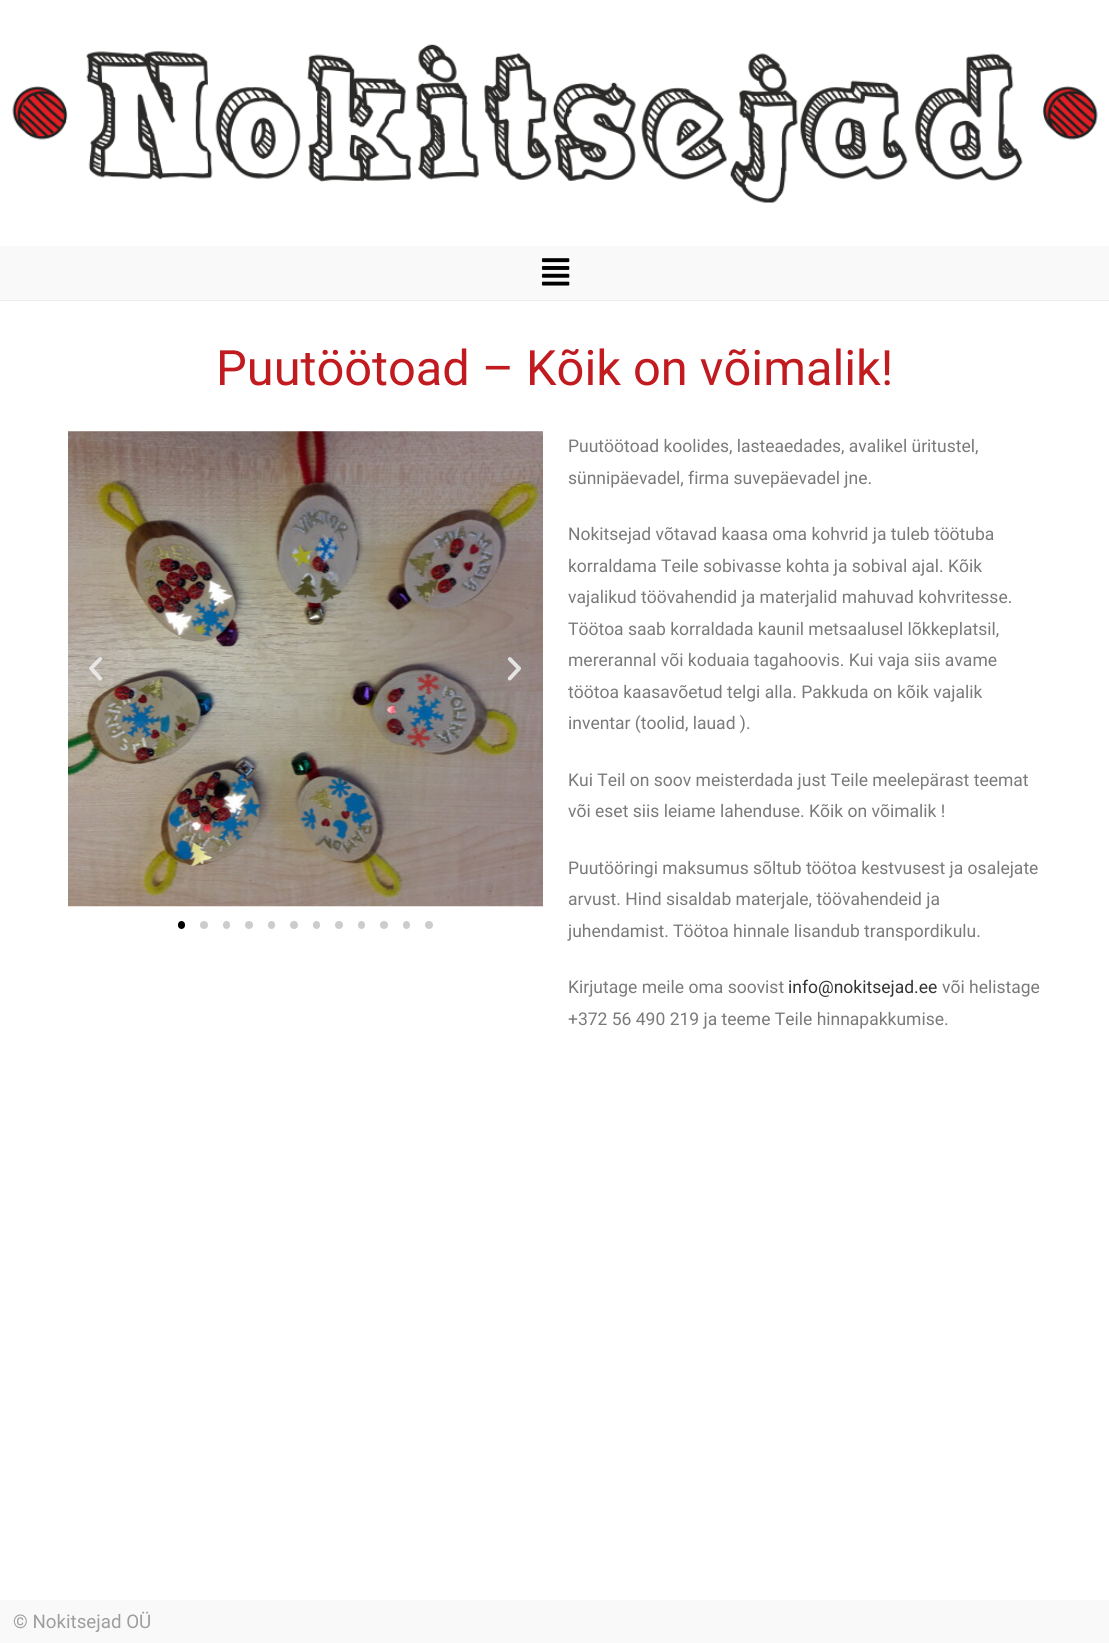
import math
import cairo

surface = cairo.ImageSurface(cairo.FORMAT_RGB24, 1109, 1643)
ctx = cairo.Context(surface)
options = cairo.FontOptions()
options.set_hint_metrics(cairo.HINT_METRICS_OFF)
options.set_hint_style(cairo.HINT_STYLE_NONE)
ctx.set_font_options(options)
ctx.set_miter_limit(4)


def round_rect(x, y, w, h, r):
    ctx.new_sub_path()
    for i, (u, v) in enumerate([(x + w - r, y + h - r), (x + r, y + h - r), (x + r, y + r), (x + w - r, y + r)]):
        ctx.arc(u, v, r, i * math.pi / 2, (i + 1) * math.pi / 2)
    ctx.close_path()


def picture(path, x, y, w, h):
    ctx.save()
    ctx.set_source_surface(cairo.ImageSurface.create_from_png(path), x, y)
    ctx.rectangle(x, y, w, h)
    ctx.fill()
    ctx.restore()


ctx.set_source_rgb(1, 1, 1)
ctx.paint()
picture("img1.png", 12, 44, 1086, 159)
ctx.set_source_rgb(0.925, 0.925, 0.925)
ctx.rectangle(0, 300, 1109, 1)
ctx.fill()
ctx.set_source_rgb(0.976, 0.976, 0.976)
ctx.rectangle(0, 246, 1109, 54)
ctx.fill()
picture("img2.png", 541, 258, 29, 28)
ctx.select_font_face("Roboto")
ctx.set_font_size(48.75)
ctx.set_source_rgb(0.757, 0.106, 0.125)
ctx.move_to(216, 385)
ctx.show_text("Puutöötoad – Kõik on võimalik!")
picture("img3.png", 68, 431, 475, 476)
picture("img4.png", 89, 657, 14, 24)
picture("img5.png", 507, 657, 14, 24)
ctx.set_source_rgb(0, 0, 0)
round_rect(178, 921, 7, 8, 3.5)
ctx.fill()
ctx.set_source_rgb(0.8, 0.8, 0.8)
ctx.arc(204, 925, 4, 0, 2 * math.pi)
ctx.fill()
round_rect(223, 921, 7, 8, 3.5)
ctx.fill()
ctx.arc(249, 925, 4, 0, 2 * math.pi)
ctx.fill()
round_rect(268, 921, 7, 8, 3.5)
ctx.fill()
ctx.arc(294, 925, 4, 0, 2 * math.pi)
ctx.fill()
round_rect(313, 921, 7, 8, 3.5)
ctx.fill()
ctx.arc(339, 925, 4, 0, 2 * math.pi)
ctx.fill()
round_rect(358, 921, 7, 8, 3.5)
ctx.fill()
ctx.arc(384, 925, 4, 0, 2 * math.pi)
ctx.fill()
round_rect(403, 921, 7, 8, 3.5)
ctx.fill()
ctx.arc(429, 925, 4, 0, 2 * math.pi)
ctx.fill()
ctx.set_font_size(17.5)
ctx.set_source_rgb(0.478, 0.478, 0.478)
ctx.move_to(568, 452)
ctx.show_text("Puutöötoad koolides, lasteaedades, avalikel üritustel,")
ctx.move_to(568, 484)
ctx.show_text("sünnipäevadel, firma suvepäevadel jne.")
ctx.move_to(568, 540)
ctx.show_text("Nokitsejad võtavad kaasa oma kohvrid ja tuleb töötuba")
ctx.move_to(568, 572)
ctx.show_text("korraldama Teile sobivasse kohta ja sobival ajal. Kõik")
ctx.move_to(568, 603)
ctx.show_text("vajalikud töövahendid ja materjalid mahuvad kohvritesse.")
ctx.move_to(568, 635)
ctx.show_text("Töötoa saab korraldada kaunil metsaalusel lõkkeplatsil,")
ctx.move_to(568, 666)
ctx.show_text("mererannal või koduaia tagahoovis. Kui vaja siis avame")
ctx.move_to(568, 698)
ctx.show_text("töötoa kaasavõetud telgi alla. Pakkuda on kõik vajalik")
ctx.move_to(568, 729)
ctx.show_text("inventar (toolid, lauad ).")
ctx.move_to(568, 786)
ctx.show_text("Kui Teil on soov meisterdada just Teile meelepärast teemat")
ctx.move_to(568, 817)
ctx.show_text("või eset siis leiame lahenduse. Kõik on võimalik !")
ctx.move_to(568, 874)
ctx.show_text("Puutööringi maksumus sõltub töötoa kestvusest ja osalejate")
ctx.move_to(568, 905)
ctx.show_text("arvust. Hind sisaldab materjale, töövahendeid ja")
ctx.move_to(568, 937)
ctx.show_text("juhendamist. Töötoa hinnale lisandub transpordikulu.")
ctx.move_to(568, 993)
ctx.show_text("Kirjutage meile oma soovist")
ctx.set_source_rgb(0.2, 0.2, 0.2)
ctx.move_to(788, 993)
ctx.show_text("info@nokitsejad.ee")
ctx.set_source_rgb(0.478, 0.478, 0.478)
ctx.move_to(942, 993)
ctx.show_text("või helistage")
ctx.move_to(568, 1025)
ctx.show_text("+372 56 490 219 ja teeme Teile hinnapakkumise.")
ctx.set_source_rgb(0.976, 0.976, 0.976)
ctx.rectangle(0, 1600, 1109, 43)
ctx.fill()
ctx.set_font_size(18.75)
ctx.set_source_rgb(0.62, 0.62, 0.62)
ctx.move_to(13, 1628)
ctx.show_text("© Nokitsejad OÜ")
surface.write_to_png("page.png")
